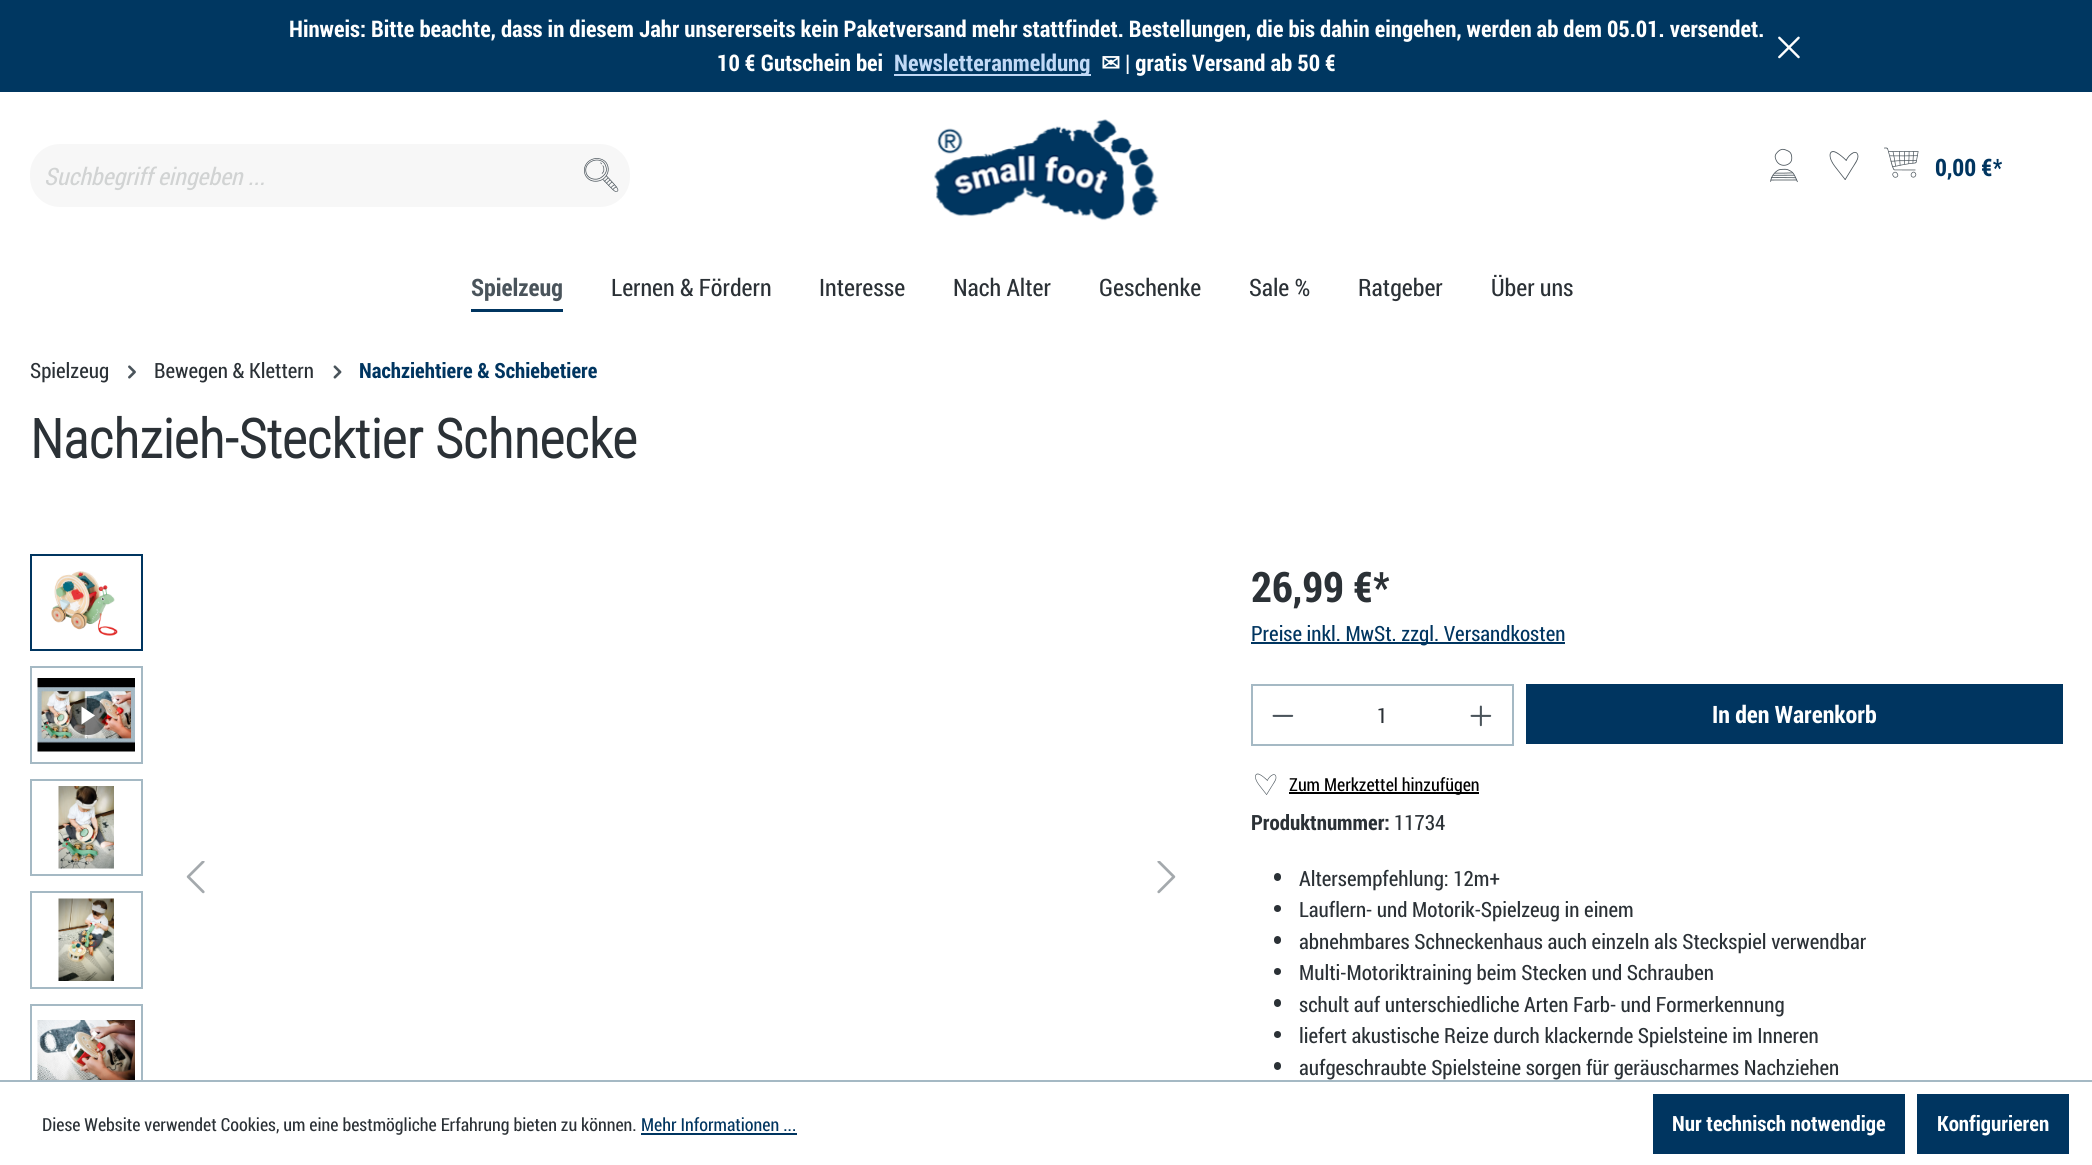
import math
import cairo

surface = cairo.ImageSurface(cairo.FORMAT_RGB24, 2092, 1165)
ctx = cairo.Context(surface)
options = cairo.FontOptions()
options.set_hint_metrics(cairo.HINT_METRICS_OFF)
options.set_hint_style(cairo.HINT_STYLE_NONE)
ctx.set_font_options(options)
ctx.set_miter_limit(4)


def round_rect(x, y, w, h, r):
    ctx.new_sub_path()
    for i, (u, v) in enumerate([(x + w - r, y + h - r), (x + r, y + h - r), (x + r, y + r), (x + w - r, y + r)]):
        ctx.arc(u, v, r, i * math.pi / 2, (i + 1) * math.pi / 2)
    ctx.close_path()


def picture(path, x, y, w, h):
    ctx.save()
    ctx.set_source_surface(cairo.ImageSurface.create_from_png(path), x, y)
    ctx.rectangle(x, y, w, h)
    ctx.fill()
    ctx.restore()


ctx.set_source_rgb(1, 1, 1)
ctx.paint()
ctx.set_source_rgb(0, 0.216, 0.38)
ctx.rectangle(0, 0, 2092, 92)
ctx.fill()
ctx.select_font_face("Roboto Condensed", cairo.FONT_SLANT_NORMAL, cairo.FONT_WEIGHT_BOLD)
ctx.set_font_size(22.95)
ctx.set_source_rgb(1, 1, 1)
ctx.move_to(289, 37)
ctx.show_text("Hinweis: Bitte beachte, dass in diesem Jahr unsererseits kein Paketversand mehr stattfindet. Bestellungen, die bis dahin eingehen, werden ab dem 05.01. versendet.")
ctx.move_to(717, 71)
ctx.show_text("10 € Gutschein bei")
ctx.set_source_rgb(0.757, 0.851, 0.961)
ctx.rectangle(894, 74, 197, 2)
ctx.fill()
ctx.move_to(894, 71)
ctx.show_text("Newsletteranmeldung")
ctx.select_font_face("DejaVu Sans", cairo.FONT_SLANT_NORMAL, cairo.FONT_WEIGHT_BOLD)
ctx.set_source_rgb(1, 1, 1)
ctx.move_to(1101, 71)
ctx.show_text("✉")
ctx.select_font_face("Roboto Condensed", cairo.FONT_SLANT_NORMAL, cairo.FONT_WEIGHT_BOLD)
ctx.move_to(1125, 71)
ctx.show_text("| gratis Versand ab 50 €")
picture("img1.png", 1778, 36, 22, 23)
ctx.set_source_rgb(0.965, 0.965, 0.965)
round_rect(30, 144, 600, 63, 30)
ctx.fill()
ctx.select_font_face("Roboto Condensed", cairo.FONT_SLANT_ITALIC)
ctx.set_font_size(24)
ctx.set_source_rgb(0.82, 0.827, 0.827)
ctx.move_to(44, 185)
ctx.show_text("Suchbegriff eingeben ...")
picture("img2.png", 584, 158, 35, 34)
picture("img3.png", 934, 119, 225, 102)
picture("img4.png", 1770, 148, 28, 35)
picture("img5.png", 1829, 151, 30, 29)
picture("img6.png", 1884, 147, 35, 31)
ctx.select_font_face("Roboto Condensed", cairo.FONT_SLANT_NORMAL, cairo.FONT_WEIGHT_BOLD)
ctx.set_source_rgb(0, 0.208, 0.376)
ctx.move_to(1935, 176)
ctx.show_text("0,00 €*")
ctx.rectangle(471, 309, 92, 3)
ctx.fill()
ctx.set_source_rgb(0.29, 0.329, 0.357)
ctx.move_to(471, 296)
ctx.show_text("Spielzeug")
ctx.select_font_face("Roboto Condensed")
ctx.set_source_rgb(0.169, 0.192, 0.212)
ctx.move_to(611, 296)
ctx.show_text("Lernen & Fördern")
ctx.move_to(819, 296)
ctx.show_text("Interesse")
ctx.move_to(953, 296)
ctx.show_text("Nach Alter")
ctx.move_to(1099, 296)
ctx.show_text("Geschenke")
ctx.move_to(1249, 296)
ctx.show_text("Sale %")
ctx.move_to(1358, 296)
ctx.show_text("Ratgeber")
ctx.move_to(1491, 296)
ctx.show_text("Über uns")
ctx.set_font_size(21)
ctx.move_to(30, 378)
ctx.show_text("Spielzeug")
picture("img7.png", 128, 365, 8, 14)
ctx.move_to(154, 378)
ctx.show_text("Bewegen & Klettern")
picture("img8.png", 333, 365, 9, 14)
ctx.select_font_face("Roboto Condensed", cairo.FONT_SLANT_NORMAL, cairo.FONT_WEIGHT_BOLD)
ctx.set_source_rgb(0, 0.208, 0.376)
ctx.move_to(359, 378)
ctx.show_text("Nachziehtiere & Schiebetiere")
ctx.select_font_face("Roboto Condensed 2", cairo.FONT_SLANT_NORMAL, cairo.FONT_WEIGHT_BOLD)
ctx.set_font_size(54)
ctx.set_source_rgb(0.169, 0.192, 0.212)
ctx.move_to(30, 458)
ctx.show_text("Nachzieh-Stecktier Schnecke")
ctx.rectangle(31, 555, 111, 95)
ctx.set_source_rgb(0, 0.208, 0.376)
ctx.stroke()
picture("img9.png", 51, 571, 67, 65)
ctx.rectangle(31, 667, 111, 96)
ctx.set_source_rgb(0.647, 0.725, 0.769)
ctx.stroke()
picture("img10.png", 37, 678, 98, 74)
ctx.set_source_rgba(0, 0, 0, 0.5)
round_rect(69, 698, 38, 37, 18.5)
ctx.fill()
ctx.set_source_rgb(1, 1, 1)
ctx.new_path()
ctx.move_to(81.5, 724.5)
ctx.line_to(81.5, 706.5)
ctx.line_to(95, 715.5)
ctx.close_path()
ctx.fill()
ctx.rectangle(31, 780, 111, 95)
ctx.set_source_rgb(0.647, 0.725, 0.769)
ctx.stroke()
picture("img11.png", 58, 786, 56, 83)
ctx.rectangle(31, 892, 111, 96)
ctx.stroke()
picture("img12.png", 58, 898, 56, 83)
ctx.rectangle(31, 1005, 111, 95)
ctx.stroke()
picture("img13.png", 37, 1020, 98, 60)
picture("img14.png", 186, 861, 19, 33)
picture("img15.png", 1157, 861, 19, 33)
ctx.select_font_face("Roboto Condensed", cairo.FONT_SLANT_NORMAL, cairo.FONT_WEIGHT_BOLD)
ctx.set_font_size(42)
ctx.set_source_rgb(0.169, 0.192, 0.212)
ctx.move_to(1251, 602)
ctx.show_text("26,99 €*")
ctx.set_source_rgb(0, 0.208, 0.376)
ctx.rectangle(1251, 642, 314, 2)
ctx.fill()
ctx.select_font_face("Roboto Condensed")
ctx.set_font_size(21)
ctx.move_to(1251, 641)
ctx.show_text("Preise inkl. MwSt. zzgl. Versandkosten")
ctx.set_source_rgb(0.647, 0.725, 0.769)
ctx.rectangle(1251, 684, 263, 2)
ctx.fill()
ctx.rectangle(1251, 744, 201, 2)
ctx.fill()
ctx.rectangle(1251, 684, 2, 62)
ctx.fill()
picture("img16.png", 1272, 714, 22, 3)
ctx.set_source_rgb(0.169, 0.192, 0.212)
ctx.move_to(1377, 723)
ctx.show_text("1")
ctx.set_source_rgb(0.647, 0.725, 0.769)
ctx.rectangle(1512, 684, 2, 62)
ctx.fill()
ctx.rectangle(1451, 744, 63, 2)
ctx.fill()
picture("img17.png", 1470, 705, 22, 22)
ctx.set_source_rgb(0, 0.208, 0.376)
ctx.rectangle(1526, 684, 537, 60)
ctx.fill()
ctx.select_font_face("Roboto Condensed", cairo.FONT_SLANT_NORMAL, cairo.FONT_WEIGHT_BOLD)
ctx.set_font_size(24)
ctx.set_source_rgb(1, 1, 1)
ctx.move_to(1712, 723)
ctx.show_text("In den Warenkorb")
picture("img18.png", 1255, 773, 22, 22)
ctx.set_source_rgb(0, 0, 0)
ctx.rectangle(1289, 792, 190, 2)
ctx.fill()
ctx.select_font_face("Roboto Condensed")
ctx.set_font_size(18)
ctx.move_to(1289, 791)
ctx.show_text("Zum Merkzettel hinzufügen")
ctx.select_font_face("Roboto Condensed", cairo.FONT_SLANT_NORMAL, cairo.FONT_WEIGHT_BOLD)
ctx.set_font_size(21)
ctx.set_source_rgb(0.169, 0.192, 0.212)
ctx.move_to(1251, 830)
ctx.show_text("Produktnummer:")
ctx.select_font_face("Roboto Condensed")
ctx.move_to(1394, 830)
ctx.show_text("11734")
round_rect(1274, 873, 7, 8, 3.5)
ctx.fill()
ctx.move_to(1299, 886)
ctx.show_text("Altersempfehlung: 12m+")
ctx.new_path()
ctx.arc(1277.5, 908.5, 3.5, 0, 2 * math.pi)
ctx.fill()
ctx.move_to(1299, 917)
ctx.show_text("Lauflern- und Motorik-Spielzeug in einem")
round_rect(1274, 936, 7, 8, 3.5)
ctx.fill()
ctx.move_to(1299, 949)
ctx.show_text("abnehmbares Schneckenhaus auch einzeln als Steckspiel verwendbar")
ctx.new_path()
ctx.arc(1277.5, 971.5, 3.5, 0, 2 * math.pi)
ctx.fill()
ctx.move_to(1299, 980)
ctx.show_text("Multi-Motoriktraining beim Stecken und Schrauben")
round_rect(1274, 999, 7, 8, 3.5)
ctx.fill()
ctx.move_to(1299, 1012)
ctx.show_text("schult auf unterschiedliche Arten Farb- und Formerkennung")
ctx.new_path()
ctx.arc(1277.5, 1034.5, 3.5, 0, 2 * math.pi)
ctx.fill()
ctx.move_to(1299, 1043)
ctx.show_text("liefert akustische Reize durch klackernde Spielsteine im Inneren")
round_rect(1274, 1062, 7, 8, 3.5)
ctx.fill()
ctx.move_to(1299, 1075)
ctx.show_text("aufgeschraubte Spielsteine sorgen für geräuscharmes Nachziehen")
ctx.set_source_rgb(1, 1, 1)
ctx.rectangle(30, 1082, 113, 19)
ctx.fill()
ctx.set_source_rgb(0.647, 0.725, 0.769)
ctx.rectangle(0, 1080, 2092, 2)
ctx.fill()
ctx.set_font_size(18)
ctx.set_source_rgb(0.169, 0.192, 0.212)
ctx.move_to(42, 1131)
ctx.show_text("Diese Website verwendet Cookies, um eine bestmögliche Erfahrung bieten zu können.")
ctx.set_source_rgb(0, 0.208, 0.376)
ctx.move_to(641, 1131)
ctx.show_text("Mehr Informationen ...")
ctx.rectangle(641, 1133, 156, 2)
ctx.fill()
ctx.rectangle(1653, 1094, 252, 60)
ctx.fill()
ctx.select_font_face("Roboto Condensed", cairo.FONT_SLANT_NORMAL, cairo.FONT_WEIGHT_BOLD)
ctx.set_font_size(21)
ctx.set_source_rgb(1, 1, 1)
ctx.move_to(1672, 1131)
ctx.show_text("Nur technisch notwendige")
ctx.set_source_rgb(0, 0.208, 0.376)
ctx.rectangle(1917, 1094, 152, 60)
ctx.fill()
ctx.set_source_rgb(1, 1, 1)
ctx.move_to(1937, 1131)
ctx.show_text("Konfigurieren")
surface.write_to_png("page.png")
